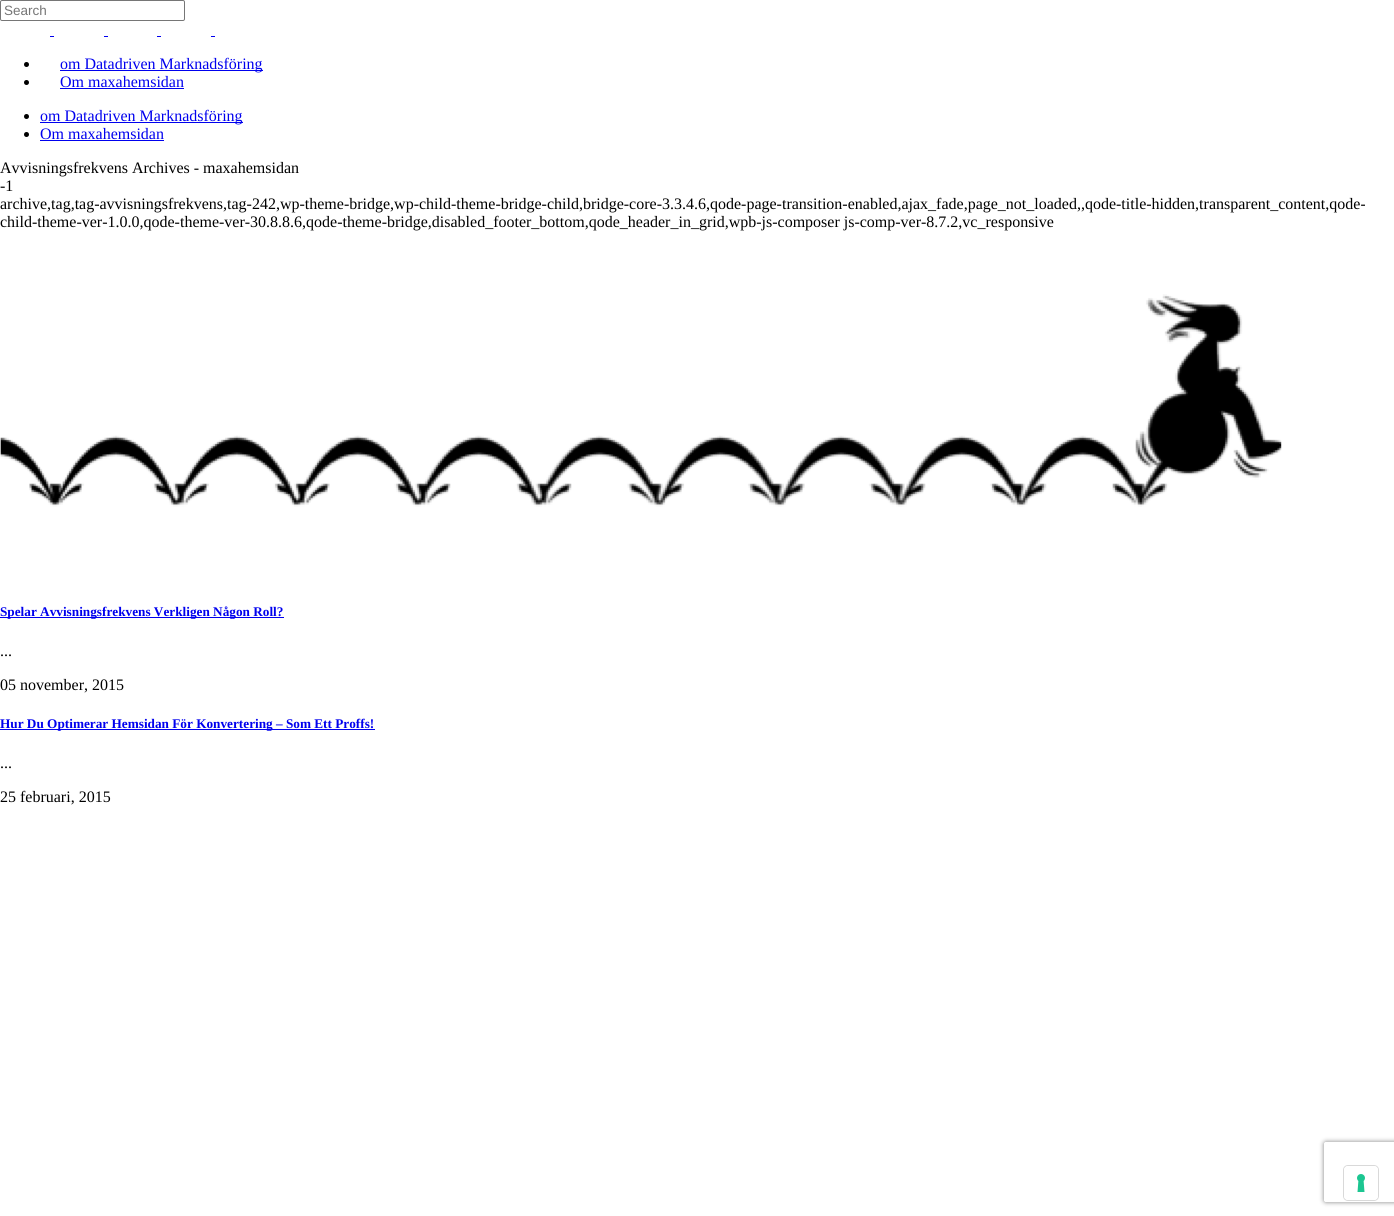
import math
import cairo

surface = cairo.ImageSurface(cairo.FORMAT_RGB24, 1394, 1216)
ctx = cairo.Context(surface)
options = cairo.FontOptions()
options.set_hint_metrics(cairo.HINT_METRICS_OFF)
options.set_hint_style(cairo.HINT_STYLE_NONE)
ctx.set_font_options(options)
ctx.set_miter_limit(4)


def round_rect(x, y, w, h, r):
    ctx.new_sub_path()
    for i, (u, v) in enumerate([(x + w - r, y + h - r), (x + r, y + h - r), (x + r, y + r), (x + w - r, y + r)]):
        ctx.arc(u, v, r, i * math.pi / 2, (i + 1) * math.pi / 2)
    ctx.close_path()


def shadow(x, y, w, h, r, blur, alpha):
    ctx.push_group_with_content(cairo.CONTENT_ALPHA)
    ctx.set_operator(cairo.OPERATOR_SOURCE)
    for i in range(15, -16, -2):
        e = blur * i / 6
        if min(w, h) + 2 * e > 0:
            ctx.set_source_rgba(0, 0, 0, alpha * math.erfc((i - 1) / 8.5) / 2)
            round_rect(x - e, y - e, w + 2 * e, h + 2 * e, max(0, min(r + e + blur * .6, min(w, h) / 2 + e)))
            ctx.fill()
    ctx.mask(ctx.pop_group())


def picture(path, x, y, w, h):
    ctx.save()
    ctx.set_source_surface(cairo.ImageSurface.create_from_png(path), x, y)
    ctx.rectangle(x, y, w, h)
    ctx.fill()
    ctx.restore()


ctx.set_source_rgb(1, 1, 1)
ctx.paint()
round_rect(0.5, 0.5, 184, 20, 1.5)
ctx.set_source_rgb(0.463, 0.463, 0.463)
ctx.set_line_width(1)
ctx.stroke()
ctx.select_font_face("Liberation Sans")
ctx.set_font_size(13.5)
ctx.set_source_rgb(0.459, 0.459, 0.459)
ctx.move_to(4, 15)
ctx.show_text("Search")
ctx.set_source_rgb(0, 0, 0.933)
ctx.rectangle(50, 36, 4, 1)
ctx.fill()
ctx.rectangle(104, 36, 4, 1)
ctx.fill()
ctx.rectangle(157, 36, 4, 1)
ctx.fill()
ctx.rectangle(211, 36, 4, 1)
ctx.fill()
ctx.set_source_rgb(0, 0, 0)
ctx.arc(26.5, 64.5, 2.5, 0, 2 * math.pi)
ctx.fill()
ctx.set_source_rgb(0, 0, 0.933)
ctx.rectangle(60, 70, 203, 1)
ctx.fill()
ctx.select_font_face("Liberation Serif")
ctx.set_font_size(16)
ctx.move_to(60, 69)
ctx.show_text("om Datadriven Marknadsföring")
ctx.set_source_rgb(0, 0, 0)
ctx.new_path()
ctx.arc(26.5, 82.5, 2.5, 0, 2 * math.pi)
ctx.fill()
ctx.set_source_rgb(0, 0, 0.933)
ctx.move_to(60, 87)
ctx.show_text("Om maxahemsidan")
ctx.rectangle(60, 88, 124, 1)
ctx.fill()
ctx.set_source_rgb(0, 0, 0)
ctx.arc(26.5, 116.5, 2.5, 0, 2 * math.pi)
ctx.fill()
ctx.set_source_rgb(0, 0, 0.933)
ctx.rectangle(40, 122, 203, 1)
ctx.fill()
ctx.move_to(40, 121)
ctx.show_text("om Datadriven Marknadsföring")
ctx.set_source_rgb(0, 0, 0)
ctx.new_path()
ctx.arc(26.5, 134.5, 2.5, 0, 2 * math.pi)
ctx.fill()
ctx.set_source_rgb(0, 0, 0.933)
ctx.move_to(40, 139)
ctx.show_text("Om maxahemsidan")
ctx.rectangle(40, 140, 124, 1)
ctx.fill()
ctx.set_source_rgb(0, 0, 0)
ctx.move_to(0, 173)
ctx.show_text("Avvisningsfrekvens Archives - maxahemsidan")
ctx.move_to(0, 191)
ctx.show_text("-1")
ctx.move_to(0, 209)
ctx.show_text("archive,tag,tag-avvisningsfrekvens,tag-242,wp-theme-bridge,wp-child-theme-bridge-child,bridge-core-3.3.4.6,qode-page-transition-enabled,ajax_fade,page_not_loaded,,qode-title-hidden,transparent_content,qode-")
ctx.move_to(0, 227)
ctx.show_text("child-theme-ver-1.0.0,qode-theme-ver-30.8.8.6,qode-theme-bridge,disabled_footer_bottom,qode_header_in_grid,wpb-js-composer js-comp-ver-8.7.2,vc_responsive")
picture("img1.png", 0, 294, 1282, 213)
ctx.set_source_rgb(0, 0, 0.933)
ctx.rectangle(0, 617, 284, 1)
ctx.fill()
ctx.select_font_face("Liberation Serif", cairo.FONT_SLANT_NORMAL, cairo.FONT_WEIGHT_BOLD)
ctx.set_font_size(13.25)
ctx.move_to(0, 616)
ctx.show_text("Spelar Avvisningsfrekvens Verkligen Någon Roll?")
ctx.select_font_face("Liberation Serif")
ctx.set_font_size(16)
ctx.set_source_rgb(0, 0, 0)
ctx.move_to(0, 656)
ctx.show_text("...")
ctx.move_to(0, 690)
ctx.show_text("05 november, 2015")
ctx.set_source_rgb(0, 0, 0.933)
ctx.rectangle(0, 729, 375, 1)
ctx.fill()
ctx.select_font_face("Liberation Serif", cairo.FONT_SLANT_NORMAL, cairo.FONT_WEIGHT_BOLD)
ctx.set_font_size(13.25)
ctx.move_to(0, 728)
ctx.show_text("Hur Du Optimerar Hemsidan För Konvertering – Som Ett Proffs!")
ctx.select_font_face("Liberation Serif")
ctx.set_font_size(16)
ctx.set_source_rgb(0, 0, 0)
ctx.move_to(0, 768)
ctx.show_text("...")
ctx.move_to(0, 802)
ctx.show_text("25 februari, 2015")
ctx.save()
ctx.set_fill_rule(cairo.FILL_RULE_EVEN_ODD)
ctx.new_path()
ctx.move_to(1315, 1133)
ctx.line_to(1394, 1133)
ctx.line_to(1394, 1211)
ctx.line_to(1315, 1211)
ctx.close_path()
ctx.move_to(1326, 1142)
ctx.line_to(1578, 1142)
ctx.curve_to(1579, 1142, 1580, 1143, 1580, 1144)
ctx.line_to(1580, 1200)
ctx.curve_to(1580, 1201, 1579, 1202, 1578, 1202)
ctx.line_to(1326, 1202)
ctx.curve_to(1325, 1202, 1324, 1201, 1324, 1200)
ctx.line_to(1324, 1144)
ctx.curve_to(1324, 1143, 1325, 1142, 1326, 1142)
ctx.close_path()
ctx.clip()
ctx.set_source_rgb(0.502, 0.502, 0.502)
shadow(1324, 1142, 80, 60, 2, 2.5, 1)
ctx.restore()
round_rect(1343.5, 1165.5, 35, 35, 4.5)
ctx.set_source_rgb(0.851, 0.851, 0.851)
ctx.stroke()
ctx.set_source_rgb(1, 1, 1)
round_rect(1344, 1166, 34, 34, 4)
ctx.fill()
picture("img2.png", 1357, 1174, 8, 18)
surface.write_to_png("page.png")
